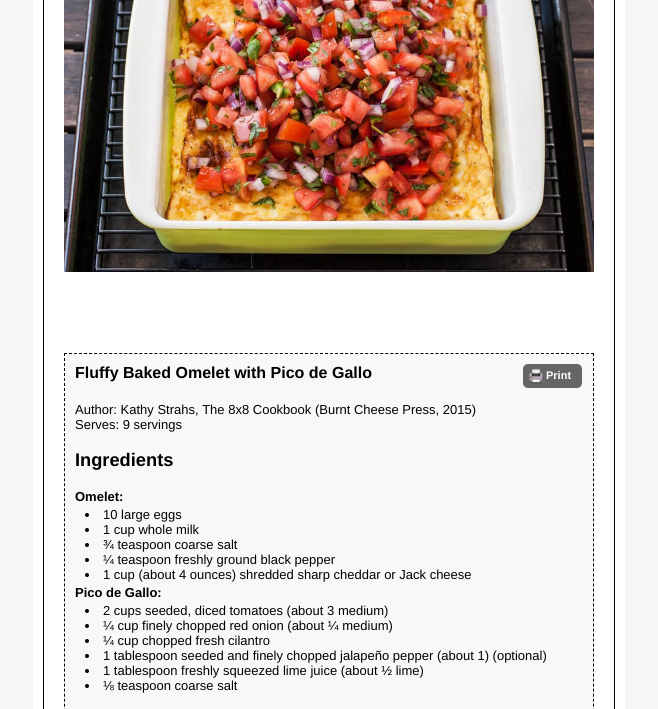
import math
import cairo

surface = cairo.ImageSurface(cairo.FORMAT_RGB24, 658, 709)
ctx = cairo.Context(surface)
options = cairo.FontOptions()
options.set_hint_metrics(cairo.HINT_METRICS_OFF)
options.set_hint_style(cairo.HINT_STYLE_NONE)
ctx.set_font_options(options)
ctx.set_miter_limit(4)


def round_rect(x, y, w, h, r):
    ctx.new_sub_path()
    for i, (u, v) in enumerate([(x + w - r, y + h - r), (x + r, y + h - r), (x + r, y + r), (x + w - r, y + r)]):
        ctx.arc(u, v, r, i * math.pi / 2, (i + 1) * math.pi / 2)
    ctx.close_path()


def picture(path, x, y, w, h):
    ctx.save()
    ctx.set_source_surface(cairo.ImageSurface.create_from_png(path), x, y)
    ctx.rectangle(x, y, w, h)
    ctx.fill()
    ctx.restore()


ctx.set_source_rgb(0.961, 0.961, 0.961)
ctx.paint()
ctx.rectangle(38, -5, 582, 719)
ctx.set_source_rgb(1, 1, 1)
ctx.set_line_width(10)
ctx.stroke()
ctx.rectangle(43.5, -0.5, 571, 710)
ctx.fill_preserve()
ctx.set_source_rgb(0, 0, 0)
ctx.set_line_width(1)
ctx.stroke()
picture("img1.png", 64, 0, 530, 272)
ctx.set_source_rgb(0.969, 0.969, 0.969)
ctx.rectangle(64, 353, 530, 356)
ctx.fill()
ctx.new_path()
ctx.move_to(64, 353.5)
ctx.line_to(594, 353.5)
ctx.set_source_rgb(0, 0, 0)
ctx.set_dash([3, 2.02])
ctx.stroke()
ctx.new_path()
ctx.move_to(593.5, 353)
ctx.line_to(593.5, 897)
ctx.set_dash([3, 2.01])
ctx.stroke()
ctx.new_path()
ctx.move_to(64.5, 353)
ctx.line_to(64.5, 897)
ctx.stroke()
ctx.select_font_face("Liberation Sans", cairo.FONT_SLANT_NORMAL, cairo.FONT_WEIGHT_BOLD)
ctx.set_font_size(16)
ctx.move_to(75, 378)
ctx.show_text("Fluffy Baked Omelet with Pico de Gallo")
ctx.set_source_rgb(0.4, 0.4, 0.4)
round_rect(523, 364, 59, 24, 5)
ctx.fill()
picture("img2.png", 529, 369, 14, 15)
ctx.set_font_size(11)
ctx.set_source_rgb(1, 1, 1)
ctx.move_to(546, 379)
ctx.show_text("Print")
ctx.select_font_face("Liberation Sans")
ctx.set_font_size(13)
ctx.set_source_rgb(0, 0, 0)
ctx.move_to(75, 414)
ctx.show_text("Author: Kathy Strahs, The 8x8 Cookbook (Burnt Cheese Press, 2015)")
ctx.move_to(75, 429)
ctx.show_text("Serves: 9 servings")
ctx.select_font_face("Liberation Sans", cairo.FONT_SLANT_NORMAL, cairo.FONT_WEIGHT_BOLD)
ctx.set_font_size(18.25)
ctx.move_to(75, 466)
ctx.show_text("Ingredients")
ctx.set_font_size(13)
ctx.move_to(75, 501)
ctx.show_text("Omelet:")
ctx.new_path()
ctx.arc(87, 515, 2, 0, 2 * math.pi)
ctx.fill()
ctx.select_font_face("Liberation Sans")
ctx.move_to(103, 519)
ctx.show_text("10 large eggs")
ctx.new_path()
ctx.arc(87, 530, 2, 0, 2 * math.pi)
ctx.fill()
ctx.move_to(103, 534)
ctx.show_text("1 cup whole milk")
ctx.new_path()
ctx.arc(87, 545, 2, 0, 2 * math.pi)
ctx.fill()
ctx.move_to(103, 549)
ctx.show_text("¾ teaspoon coarse salt")
ctx.new_path()
ctx.arc(87, 560, 2, 0, 2 * math.pi)
ctx.fill()
ctx.move_to(103, 564)
ctx.show_text("¼ teaspoon freshly ground black pepper")
ctx.new_path()
ctx.arc(87, 575, 2, 0, 2 * math.pi)
ctx.fill()
ctx.move_to(103, 579)
ctx.show_text("1 cup (about 4 ounces) shredded sharp cheddar or Jack cheese")
ctx.select_font_face("Liberation Sans", cairo.FONT_SLANT_NORMAL, cairo.FONT_WEIGHT_BOLD)
ctx.move_to(75, 597)
ctx.show_text("Pico de Gallo:")
ctx.new_path()
ctx.arc(87, 611, 2, 0, 2 * math.pi)
ctx.fill()
ctx.select_font_face("Liberation Sans")
ctx.move_to(103, 615)
ctx.show_text("2 cups seeded, diced tomatoes (about 3 medium)")
ctx.new_path()
ctx.arc(87, 626, 2, 0, 2 * math.pi)
ctx.fill()
ctx.move_to(103, 630)
ctx.show_text("¼ cup finely chopped red onion (about ¼ medium)")
ctx.new_path()
ctx.arc(87, 641, 2, 0, 2 * math.pi)
ctx.fill()
ctx.move_to(103, 645)
ctx.show_text("¼ cup chopped fresh cilantro")
ctx.new_path()
ctx.arc(87, 656, 2, 0, 2 * math.pi)
ctx.fill()
ctx.move_to(103, 660)
ctx.show_text("1 tablespoon seeded and finely chopped jalapeño pepper (about 1) (optional)")
ctx.new_path()
ctx.arc(87, 671, 2, 0, 2 * math.pi)
ctx.fill()
ctx.move_to(103, 675)
ctx.show_text("1 tablespoon freshly squeezed lime juice (about ½ lime)")
ctx.new_path()
ctx.arc(87, 686, 2, 0, 2 * math.pi)
ctx.fill()
ctx.move_to(103, 690)
ctx.show_text("⅛ teaspoon coarse salt")
surface.write_to_png("page.png")
